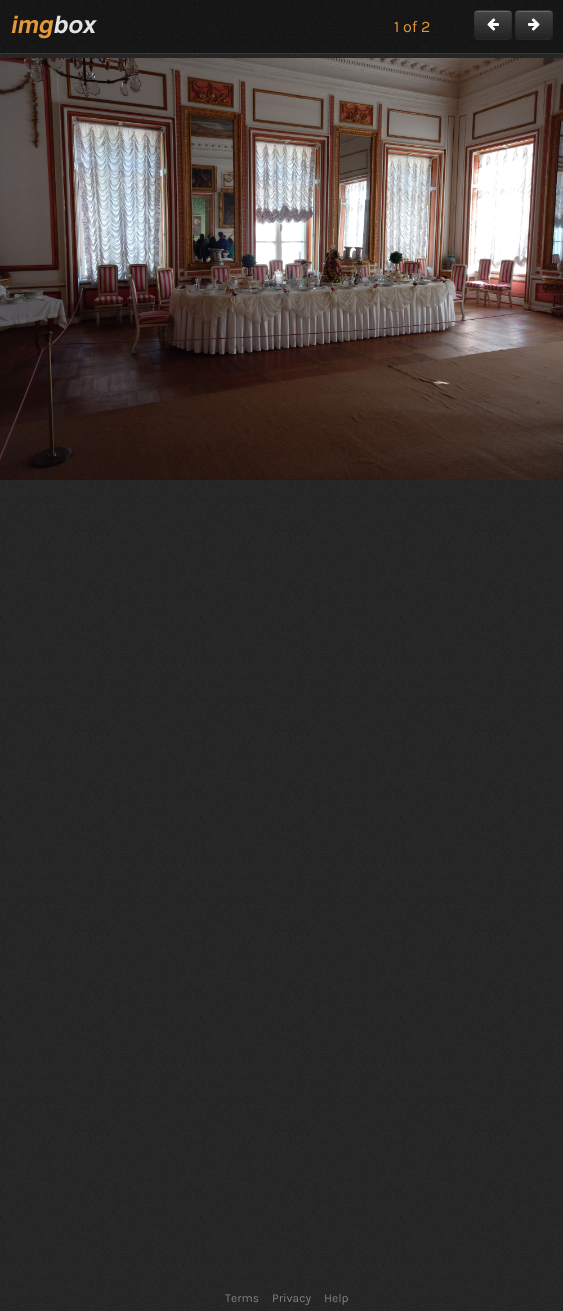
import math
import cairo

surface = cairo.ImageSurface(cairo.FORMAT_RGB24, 563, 1311)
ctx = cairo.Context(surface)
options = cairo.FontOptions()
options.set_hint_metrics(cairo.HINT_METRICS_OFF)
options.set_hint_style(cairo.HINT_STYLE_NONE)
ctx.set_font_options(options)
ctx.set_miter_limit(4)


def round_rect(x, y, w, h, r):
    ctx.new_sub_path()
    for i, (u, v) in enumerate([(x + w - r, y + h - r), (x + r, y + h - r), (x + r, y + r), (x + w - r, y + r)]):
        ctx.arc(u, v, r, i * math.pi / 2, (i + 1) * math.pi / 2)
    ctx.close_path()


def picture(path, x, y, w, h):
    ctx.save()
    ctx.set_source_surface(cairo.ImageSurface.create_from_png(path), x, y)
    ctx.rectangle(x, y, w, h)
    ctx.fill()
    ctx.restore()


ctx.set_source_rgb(0.149, 0.149, 0.149)
ctx.paint()
picture("img1.png", 0, 54, 563, 1256)
picture("img2.png", 0, 0, 563, 53)
ctx.set_source_rgb(0.216, 0.216, 0.216)
ctx.rectangle(0, 53, 563, 1)
ctx.fill()
picture("img3.png", 11, 15, 86, 24)
ctx.select_font_face("Karla")
ctx.set_font_size(16)
ctx.set_source_rgb(0.89, 0.6, 0.22)
ctx.move_to(394, 32)
ctx.show_text("1 of 2")
ctx.set_source_rgb(0.212, 0.212, 0.212)
round_rect(474, 10, 38, 30, 4)
ctx.fill()
ctx.save()
round_rect(474, 10, 38, 30, 4)
ctx.clip()
gradient = cairo.LinearGradient(493, 11, 493, 39)
gradient.add_color_stop_rgba(0, 0.267, 0.267, 0.267, 1)
gradient.add_color_stop_rgba(1, 0.133, 0.133, 0.133, 1)
ctx.set_source(gradient)
ctx.rectangle(474, 11, 38, 28)
ctx.fill()
ctx.restore()
ctx.set_source_rgb(0.412, 0.412, 0.412)
ctx.new_path()
ctx.move_to(478, 12)
ctx.line_to(508, 12)
ctx.curve_to(510, 12, 511, 13, 511, 15)
ctx.curve_to(511, 10, 507, 11, 503, 11)
ctx.line_to(483, 11)
ctx.curve_to(479, 11, 475, 10, 475, 15)
ctx.curve_to(475, 13, 476, 12, 478, 12)
ctx.close_path()
ctx.fill()
ctx.new_path()
ctx.move_to(510.5, 38.5)
ctx.curve_to(510, 39, 509, 39.5, 508, 39.5)
ctx.line_to(478, 39.5)
ctx.curve_to(477, 39.5, 476, 39, 475.5, 38.5)
ctx.set_source_rgba(0, 0, 0, 0.25)
ctx.set_line_width(1)
ctx.stroke()
ctx.new_path()
ctx.move_to(475.5, 38.5)
ctx.curve_to(475, 38, 474.5, 37, 474.5, 36)
ctx.line_to(474.5, 14)
ctx.curve_to(474.5, 13, 475, 12, 475.5, 11.5)
ctx.curve_to(476, 11, 477, 10.5, 478, 10.5)
ctx.line_to(508, 10.5)
ctx.curve_to(509, 10.5, 510, 11, 510.5, 11.5)
ctx.curve_to(511, 12, 511.5, 13, 511.5, 14)
ctx.line_to(511.5, 36)
ctx.curve_to(511.5, 37, 511, 38, 510.5, 38.5)
ctx.set_source_rgba(0, 0, 0, 0.1)
ctx.stroke()
picture("img4.png", 487, 18, 12, 13)
ctx.set_source_rgb(0.212, 0.212, 0.212)
round_rect(515, 10, 38, 30, 4)
ctx.fill()
ctx.save()
round_rect(515, 10, 38, 30, 4)
ctx.clip()
gradient = cairo.LinearGradient(534, 11, 534, 39)
gradient.add_color_stop_rgba(0, 0.267, 0.267, 0.267, 1)
gradient.add_color_stop_rgba(1, 0.133, 0.133, 0.133, 1)
ctx.set_source(gradient)
ctx.rectangle(515, 11, 38, 28)
ctx.fill()
ctx.restore()
ctx.set_source_rgb(0.412, 0.412, 0.412)
ctx.new_path()
ctx.move_to(519, 12)
ctx.line_to(549, 12)
ctx.curve_to(551, 12, 552, 13, 552, 15)
ctx.curve_to(552, 10, 548, 11, 544, 11)
ctx.line_to(524, 11)
ctx.curve_to(520, 11, 516, 10, 516, 15)
ctx.curve_to(516, 13, 517, 12, 519, 12)
ctx.close_path()
ctx.fill()
ctx.new_path()
ctx.move_to(551.5, 38.5)
ctx.curve_to(551, 39, 550, 39.5, 549, 39.5)
ctx.line_to(519, 39.5)
ctx.curve_to(518, 39.5, 517, 39, 516.5, 38.5)
ctx.set_source_rgba(0, 0, 0, 0.25)
ctx.stroke()
ctx.new_path()
ctx.move_to(516.5, 38.5)
ctx.curve_to(516, 38, 515.5, 37, 515.5, 36)
ctx.line_to(515.5, 14)
ctx.curve_to(515.5, 13, 516, 12, 516.5, 11.5)
ctx.curve_to(517, 11, 518, 10.5, 519, 10.5)
ctx.line_to(549, 10.5)
ctx.curve_to(550, 10.5, 551, 11, 551.5, 11.5)
ctx.curve_to(552, 12, 552.5, 13, 552.5, 14)
ctx.line_to(552.5, 36)
ctx.curve_to(552.5, 37, 552, 38, 551.5, 38.5)
ctx.set_source_rgba(0, 0, 0, 0.1)
ctx.stroke()
picture("img5.png", 528, 18, 12, 13)
picture("img6.png", 0, 58, 563, 422)
ctx.set_font_size(12)
ctx.set_source_rgb(0.502, 0.502, 0.502)
ctx.move_to(225, 1302)
ctx.show_text("Terms")
ctx.move_to(272, 1302)
ctx.show_text("Privacy")
ctx.move_to(324, 1302)
ctx.show_text("Help")
surface.write_to_png("page.png")
